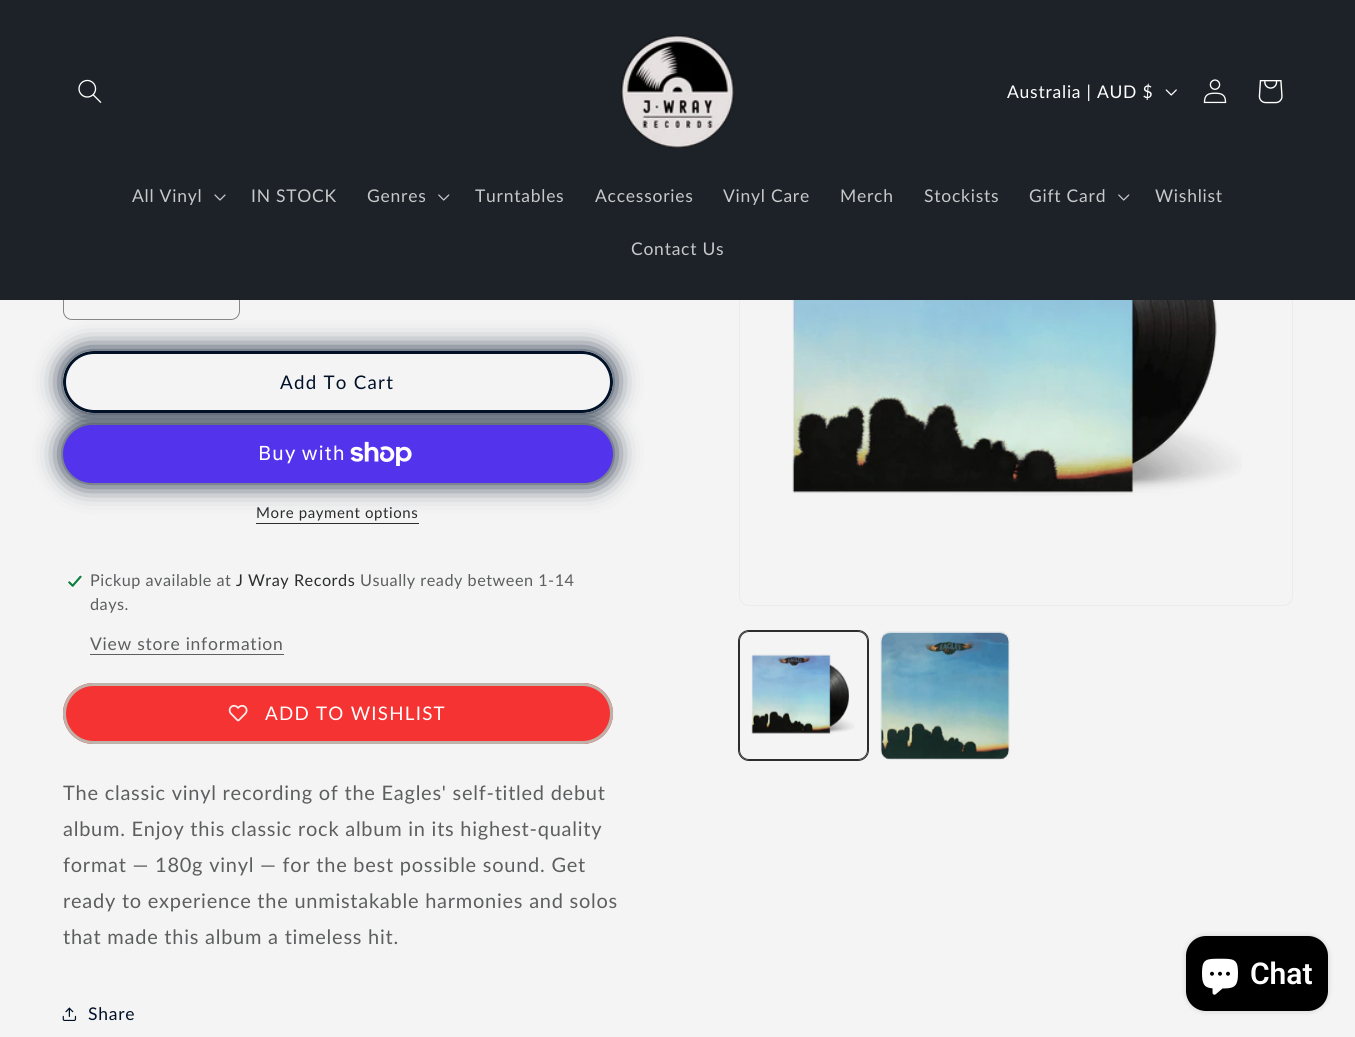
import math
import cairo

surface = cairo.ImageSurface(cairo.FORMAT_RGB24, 1355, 1037)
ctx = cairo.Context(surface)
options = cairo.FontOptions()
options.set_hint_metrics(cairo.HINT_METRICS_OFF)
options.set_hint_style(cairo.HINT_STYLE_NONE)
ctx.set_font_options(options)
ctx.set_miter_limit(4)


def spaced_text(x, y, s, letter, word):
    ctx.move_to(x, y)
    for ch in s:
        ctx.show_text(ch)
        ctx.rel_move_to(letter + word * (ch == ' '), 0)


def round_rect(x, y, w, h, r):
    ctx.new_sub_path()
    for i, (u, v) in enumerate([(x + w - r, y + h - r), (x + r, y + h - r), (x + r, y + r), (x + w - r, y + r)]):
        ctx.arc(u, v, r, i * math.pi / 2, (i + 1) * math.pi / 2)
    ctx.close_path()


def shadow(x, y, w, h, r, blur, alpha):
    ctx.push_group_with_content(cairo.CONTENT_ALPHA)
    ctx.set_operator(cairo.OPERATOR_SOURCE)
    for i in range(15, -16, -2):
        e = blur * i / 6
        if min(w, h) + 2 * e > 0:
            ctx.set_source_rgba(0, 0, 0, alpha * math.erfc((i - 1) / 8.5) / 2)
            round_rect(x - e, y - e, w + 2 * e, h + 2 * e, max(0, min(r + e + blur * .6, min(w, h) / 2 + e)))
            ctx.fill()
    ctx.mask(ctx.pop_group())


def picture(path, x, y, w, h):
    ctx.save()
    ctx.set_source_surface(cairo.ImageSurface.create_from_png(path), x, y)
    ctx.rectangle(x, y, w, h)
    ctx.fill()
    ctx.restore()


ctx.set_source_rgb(0.957, 0.957, 0.957)
ctx.paint()
ctx.set_source_rgb(0, 0.067, 0.157)
shadow(63, 351, 550, 62, 31, 12.5, 1)
round_rect(63.5, 261.5, 176, 58, 8.5)
ctx.set_source_rgb(0.522, 0.525, 0.525)
ctx.set_line_width(1)
ctx.stroke()
round_rect(739.5, 53.5, 553, 552, 9.5)
ctx.set_source_rgb(0.918, 0.918, 0.918)
ctx.stroke()
ctx.set_source_rgb(0.11, 0.133, 0.157)
ctx.rectangle(0, 0, 1355, 300)
ctx.fill()
picture("img1.png", 78, 79, 24, 24)
picture("img2.png", 621, 35, 113, 113)
ctx.select_font_face("Lato")
ctx.set_font_size(17.5)
ctx.set_source_rgb(1, 1, 1)
spaced_text(1007, 98, "Australia | AUD $", 0.75, 0)
picture("img3.png", 1165, 89, 12, 7)
picture("img4.png", 1203, 79, 24, 25)
picture("img5.png", 1258, 80, 25, 24)
ctx.set_source_rgb(0.776, 0.784, 0.788)
spaced_text(132, 202, "All Vinyl", 0.75, 0)
picture("img6.png", 214, 194, 12, 7)
spaced_text(251, 202, "IN STOCK", 0.75, 0)
spaced_text(367, 202, "Genres", 0.75, 0)
picture("img7.png", 438, 194, 12, 7)
spaced_text(475, 202, "Turntables", 0.75, 0)
spaced_text(595, 202, "Accessories", 0.75, 0)
spaced_text(723, 202, "Vinyl Care", 0.75, 0)
spaced_text(840, 202, "Merch", 0.75, 0)
spaced_text(924, 202, "Stockists", 0.75, 0)
spaced_text(1029, 202, "Gift Card", 0.75, 0)
picture("img7.png", 1118, 194, 12, 7)
spaced_text(1155, 202, "Wishlist", 0.75, 0)
spaced_text(631, 255, "Contact Us", 0.75, 0)
ctx.set_source_rgb(0, 0.067, 0.157)
shadow(63, 425, 550, 58, 29, 12.5, 1)
ctx.set_source_rgb(0.957, 0.957, 0.957)
round_rect(63, 351, 550, 62, 31)
ctx.fill()
round_rect(64.5, 352.5, 547, 59, 29.5)
ctx.set_line_width(3)
ctx.stroke()
round_rect(64.5, 352.5, 547, 59, 29.5)
ctx.set_source_rgb(0, 0.067, 0.157)
ctx.stroke()
ctx.set_font_size(18.75)
spaced_text(280, 389, "Add To Cart", 1.25, 0)
ctx.set_source_rgb(0.329, 0.2, 0.922)
round_rect(63, 425, 550, 58, 29)
ctx.fill()
ctx.select_font_face("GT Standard")
ctx.set_font_size(20)
ctx.set_source_rgb(1, 1, 1)
spaced_text(258, 460, "Buy with", 0.75, 0)
picture("img8.png", 350, 441, 62, 25)
ctx.select_font_face("Lato")
ctx.set_font_size(15)
ctx.set_source_rgb(0.169, 0.173, 0.176)
spaced_text(256, 518, "More payment options", 0.6, 0)
ctx.rectangle(256, 523, 163, 1)
ctx.fill()
picture("img9.png", 67, 574, 15, 14)
ctx.set_font_size(16.25)
ctx.set_source_rgb(0.365, 0.369, 0.373)
spaced_text(90, 586, "Pickup available at", 0.5, 0)
ctx.set_source_rgb(0.169, 0.173, 0.176)
spaced_text(236, 586, "J Wray Records", 0.5, 0)
ctx.set_source_rgb(0.365, 0.369, 0.373)
spaced_text(360, 586, "Usually ready between 1-14", 0.5, 0)
spaced_text(90, 610, "days.", 0.5, 0)
ctx.set_font_size(17.5)
spaced_text(90, 650, "View store information", 0.75, 0)
ctx.rectangle(90, 654, 194, 1)
ctx.fill()
ctx.set_source_rgb(0.961, 0.2, 0.2)
round_rect(63, 683, 550, 61, 30.5)
ctx.fill()
ctx.save()
round_rect(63, 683, 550, 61, 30.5)
ctx.clip()
ctx.set_fill_rule(cairo.FILL_RULE_EVEN_ODD)
ctx.new_path()
ctx.move_to(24, 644)
ctx.line_to(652, 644)
ctx.line_to(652, 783)
ctx.line_to(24, 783)
ctx.close_path()
ctx.move_to(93.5, 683)
ctx.line_to(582.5, 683)
ctx.curve_to(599.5, 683, 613, 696.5, 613, 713.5)
ctx.curve_to(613, 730.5, 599.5, 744, 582.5, 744)
ctx.line_to(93.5, 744)
ctx.curve_to(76.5, 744, 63, 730.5, 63, 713.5)
ctx.curve_to(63, 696.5, 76.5, 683, 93.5, 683)
ctx.close_path()
ctx.clip()
ctx.set_source_rgb(0.094, 0.157, 0.235)
shadow(63, 683, 550, 61, 30.5, 12.5, 1)
ctx.restore()
picture("img10.png", 228, 704, 20, 18)
round_rect(64.5, 684.5, 547, 58, 29)
ctx.set_source_rgb(0.741, 0.702, 0.667)
ctx.stroke()
ctx.set_font_size(18.75)
ctx.set_source_rgb(1, 1, 1)
spaced_text(265, 720, "ADD TO WISHLIST", 1.25, 0)
ctx.set_font_size(20)
ctx.set_source_rgb(0.365, 0.369, 0.373)
spaced_text(63, 800, "The classic vinyl recording of the Eagles' self-titled debut", 0.75, 0)
spaced_text(63, 836, "album. Enjoy this classic rock album in its highest-quality", 0.75, 0)
spaced_text(63, 872, "format — 180g vinyl — for the best possible sound. Get", 0.75, 0)
spaced_text(63, 908, "ready to experience the unmistakable harmonies and solos", 0.75, 0)
spaced_text(63, 944, "that made this album a timeless hit.", 0.75, 0)
picture("img11.png", 62, 1007, 15, 14)
ctx.set_font_size(17.5)
ctx.set_source_rgb(0, 0.067, 0.157)
spaced_text(88, 1020, "Share", 0.75, 0)
picture("img12.png", 792, 300, 450, 196)
round_rect(738.5, 630.5, 130, 130, 10.5)
ctx.set_source_rgb(0.169, 0.173, 0.176)
ctx.set_line_width(1)
ctx.stroke()
round_rect(739.5, 631.5, 128, 128, 9.5)
ctx.stroke()
picture("img13.png", 751, 654, 104, 80)
round_rect(880.5, 631.5, 129, 128, 9.5)
ctx.set_source_rgb(0.918, 0.918, 0.918)
ctx.stroke()
picture("img14.png", 881, 632, 128, 128)
ctx.set_source_rgb(0, 0, 0)
shadow(1186, 936, 142, 75, 20, 3, 0.15)
ctx.set_source_rgb(0, 0, 0)
round_rect(1186, 936, 142, 75, 20)
ctx.fill()
picture("img15.png", 1202, 958, 36, 37)
ctx.select_font_face("Roboto SemiBold")
ctx.set_font_size(30)
ctx.set_source_rgb(1, 1, 1)
ctx.move_to(1250, 984)
ctx.show_text("Chat")
surface.write_to_png("page.png")
